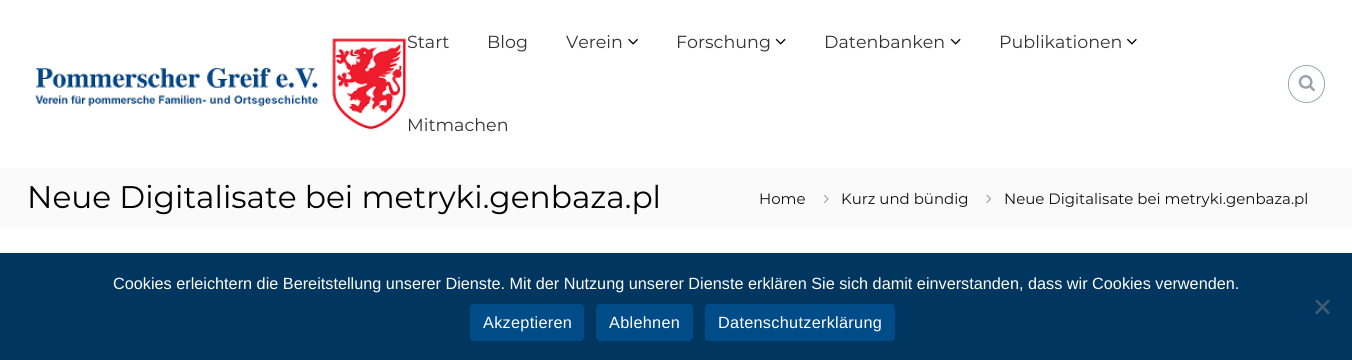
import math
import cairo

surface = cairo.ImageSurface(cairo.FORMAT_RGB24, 1352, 360)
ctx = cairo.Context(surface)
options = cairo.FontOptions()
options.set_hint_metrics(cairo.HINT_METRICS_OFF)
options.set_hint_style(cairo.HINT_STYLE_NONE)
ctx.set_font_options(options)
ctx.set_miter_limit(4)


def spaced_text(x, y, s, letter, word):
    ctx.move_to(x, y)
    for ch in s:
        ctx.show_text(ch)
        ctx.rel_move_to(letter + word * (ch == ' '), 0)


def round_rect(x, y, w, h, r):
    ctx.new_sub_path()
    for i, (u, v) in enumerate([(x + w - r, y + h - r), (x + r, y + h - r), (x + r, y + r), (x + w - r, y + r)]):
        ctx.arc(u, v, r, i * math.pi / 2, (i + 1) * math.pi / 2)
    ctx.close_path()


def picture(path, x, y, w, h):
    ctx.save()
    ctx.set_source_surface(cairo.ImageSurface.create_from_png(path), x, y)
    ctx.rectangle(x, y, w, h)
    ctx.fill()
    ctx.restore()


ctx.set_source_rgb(1, 1, 1)
ctx.paint()
picture("img1.png", 35, 38, 372, 92)
ctx.select_font_face("Montserrat")
ctx.set_font_size(17.5)
ctx.set_source_rgb(0.2, 0.2, 0.2)
ctx.move_to(407, 48)
ctx.show_text("Start")
ctx.move_to(487, 48)
ctx.show_text("Blog")
ctx.move_to(566, 48)
ctx.show_text("Verein")
picture("img2.png", 628, 38, 10, 7)
ctx.move_to(676, 48)
ctx.show_text("Forschung")
picture("img3.png", 775, 38, 11, 7)
ctx.move_to(824, 48)
ctx.show_text("Datenbanken")
picture("img3.png", 950, 38, 11, 7)
ctx.move_to(999, 48)
ctx.show_text("Publikationen")
picture("img4.png", 1127, 38, 10, 7)
ctx.move_to(407, 131)
ctx.show_text("Mitmachen")
round_rect(1288.5, 65.5, 36, 37, 18)
ctx.set_source_rgb(0.612, 0.651, 0.698)
ctx.set_line_width(1)
ctx.stroke()
picture("img5.png", 1298, 75, 17, 17)
ctx.set_source_rgb(0.98, 0.98, 0.98)
ctx.rectangle(0, 168, 1352, 61)
ctx.fill()
ctx.set_font_size(31.25)
ctx.set_source_rgb(0, 0, 0)
ctx.move_to(27, 208)
ctx.show_text("Neue Digitalisate bei metryki.genbaza.pl")
ctx.set_font_size(15)
ctx.set_source_rgb(0.059, 0.059, 0.059)
ctx.move_to(759, 204)
ctx.show_text("Home")
picture("img6.png", 824, 194, 5, 9)
ctx.move_to(841, 204)
ctx.show_text("Kurz und bündig")
picture("img7.png", 986, 194, 6, 9)
ctx.move_to(1004, 204)
ctx.show_text("Neue Digitalisate bei metryki.genbaza.pl")
ctx.set_source_rgb(0, 0.212, 0.376)
ctx.rectangle(0, 253, 1352, 107)
ctx.fill()
ctx.select_font_face("Liberation Sans")
ctx.set_font_size(16.25)
ctx.set_source_rgb(1, 1, 1)
ctx.move_to(113, 289)
ctx.show_text("Cookies erleichtern die Bereitstellung unserer Dienste. Mit der Nutzung unserer Dienste erklären Sie sich damit einverstanden, dass wir Cookies verwenden.")
ctx.set_source_rgb(0.251, 0.357, 0.439)
ctx.new_path()
ctx.move_to(1328, 299.5)
ctx.line_to(1330, 301)
ctx.line_to(1317, 314.5)
ctx.line_to(1315, 312.5)
ctx.close_path()
ctx.fill()
ctx.new_path()
ctx.move_to(1315, 301)
ctx.line_to(1317, 299.5)
ctx.line_to(1330, 312.5)
ctx.line_to(1328, 314.5)
ctx.close_path()
ctx.fill()
ctx.set_source_rgb(0, 0.298, 0.537)
round_rect(470, 304, 114, 37, 4)
ctx.fill()
ctx.set_source_rgb(1, 1, 1)
spaced_text(483, 328, "Akzeptieren", 0.3, 0)
ctx.set_source_rgb(0, 0.298, 0.537)
round_rect(596, 304, 97, 37, 4)
ctx.fill()
ctx.set_source_rgb(1, 1, 1)
spaced_text(609, 328, "Ablehnen", 0.3, 0)
ctx.set_source_rgb(0, 0.298, 0.537)
round_rect(705, 304, 190, 37, 4)
ctx.fill()
ctx.set_source_rgb(1, 1, 1)
spaced_text(718, 328, "Datenschutzerklärung", 0.3, 0)
surface.write_to_png("page.png")
